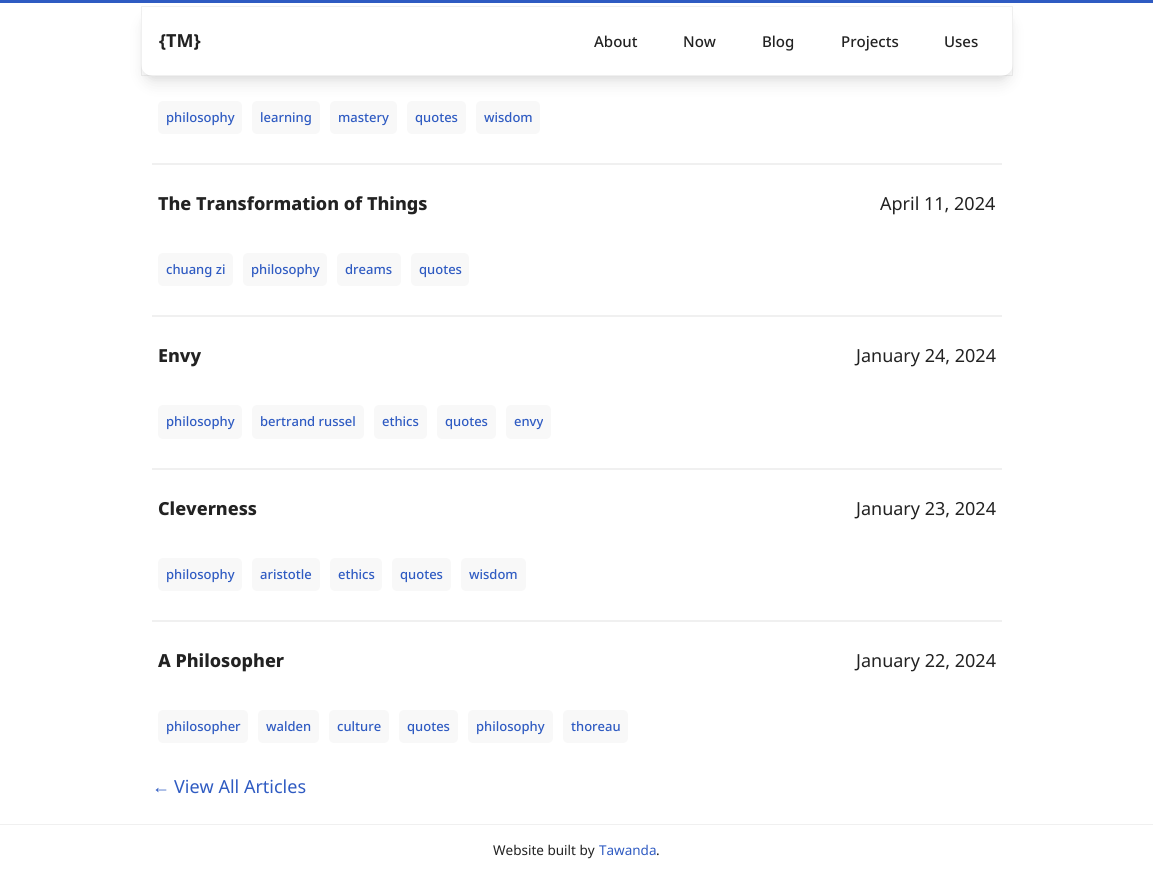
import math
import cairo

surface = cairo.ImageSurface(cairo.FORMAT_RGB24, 1153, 877)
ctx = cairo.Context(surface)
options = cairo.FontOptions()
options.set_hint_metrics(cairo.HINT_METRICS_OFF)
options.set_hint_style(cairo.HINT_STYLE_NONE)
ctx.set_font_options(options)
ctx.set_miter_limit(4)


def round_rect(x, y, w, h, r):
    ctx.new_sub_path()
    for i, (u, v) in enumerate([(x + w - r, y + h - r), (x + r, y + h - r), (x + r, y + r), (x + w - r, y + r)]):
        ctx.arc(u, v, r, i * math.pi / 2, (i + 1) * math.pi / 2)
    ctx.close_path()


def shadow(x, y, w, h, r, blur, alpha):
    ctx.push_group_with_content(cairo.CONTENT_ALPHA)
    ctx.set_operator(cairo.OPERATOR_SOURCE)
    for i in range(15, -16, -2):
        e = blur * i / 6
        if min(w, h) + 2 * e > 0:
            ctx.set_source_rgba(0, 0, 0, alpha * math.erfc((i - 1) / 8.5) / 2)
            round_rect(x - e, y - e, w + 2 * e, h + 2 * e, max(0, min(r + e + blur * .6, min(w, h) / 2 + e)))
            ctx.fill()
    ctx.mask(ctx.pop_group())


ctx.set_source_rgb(1, 1, 1)
ctx.paint()
ctx.set_source_rgb(0.184, 0.357, 0.761)
ctx.rectangle(0, 0, 1153, 3)
ctx.fill()
ctx.set_source_rgb(0, 0, 0)
shadow(143, 12, 868, 66, 10, 3, 0.05)
ctx.set_source_rgb(0.969, 0.969, 0.969)
round_rect(158, 101, 84, 33, 5)
ctx.fill()
round_rect(252, 101, 68, 33, 5)
ctx.fill()
round_rect(330, 101, 67, 33, 5)
ctx.fill()
round_rect(407, 101, 59, 33, 5)
ctx.fill()
round_rect(476, 101, 64, 33, 5)
ctx.fill()
ctx.set_source_rgb(0, 0, 0)
shadow(144, 19, 866, 64, 9, 7.5, 0.1)
ctx.set_source_rgb(1, 1, 1)
round_rect(141, 6, 872, 70, 12)
ctx.fill()
ctx.rectangle(141.5, 6.5, 871, 69)
ctx.set_source_rgba(0, 0, 0, 0.06)
ctx.set_line_width(1)
ctx.stroke()
ctx.select_font_face("Noto Sans", cairo.FONT_SLANT_NORMAL, cairo.FONT_WEIGHT_BOLD)
ctx.set_font_size(18)
ctx.set_source_rgb(0.133, 0.133, 0.133)
ctx.move_to(159, 47)
ctx.show_text("{TM}")
ctx.select_font_face("Noto Sans Medium")
ctx.set_font_size(15)
ctx.move_to(594, 47)
ctx.show_text("About")
ctx.move_to(683, 47)
ctx.show_text("Now")
ctx.move_to(762, 47)
ctx.show_text("Blog")
ctx.move_to(841, 47)
ctx.show_text("Projects")
ctx.move_to(944, 47)
ctx.show_text("Uses")
ctx.set_source_rgb(0.941, 0.941, 0.941)
ctx.rectangle(152, 163, 850, 2)
ctx.fill()
ctx.set_font_size(13)
ctx.set_source_rgb(0.184, 0.357, 0.761)
ctx.move_to(166, 122)
ctx.show_text("philosophy")
ctx.move_to(260, 122)
ctx.show_text("learning")
ctx.move_to(338, 122)
ctx.show_text("mastery")
ctx.move_to(415, 122)
ctx.show_text("quotes")
ctx.move_to(484, 122)
ctx.show_text("wisdom")
ctx.set_source_rgb(0.941, 0.941, 0.941)
ctx.rectangle(152, 315, 850, 2)
ctx.fill()
ctx.select_font_face("Noto Sans ExtraBold")
ctx.set_font_size(18)
ctx.set_source_rgb(0.133, 0.133, 0.133)
ctx.move_to(158, 210)
ctx.show_text("The Transformation of Things")
ctx.select_font_face("Noto Sans")
ctx.move_to(880, 210)
ctx.show_text("April 11, 2024")
ctx.set_source_rgb(0.969, 0.969, 0.969)
round_rect(158, 253, 75, 33, 5)
ctx.fill()
ctx.select_font_face("Noto Sans Medium")
ctx.set_font_size(13)
ctx.set_source_rgb(0.184, 0.357, 0.761)
ctx.move_to(166, 274)
ctx.show_text("chuang zi")
ctx.set_source_rgb(0.969, 0.969, 0.969)
round_rect(243, 253, 84, 33, 5)
ctx.fill()
ctx.set_source_rgb(0.184, 0.357, 0.761)
ctx.move_to(251, 274)
ctx.show_text("philosophy")
ctx.set_source_rgb(0.969, 0.969, 0.969)
round_rect(337, 253, 64, 33, 5)
ctx.fill()
ctx.set_source_rgb(0.184, 0.357, 0.761)
ctx.move_to(345, 274)
ctx.show_text("dreams")
ctx.set_source_rgb(0.969, 0.969, 0.969)
round_rect(411, 253, 58, 33, 5)
ctx.fill()
ctx.set_source_rgb(0.184, 0.357, 0.761)
ctx.move_to(419, 274)
ctx.show_text("quotes")
ctx.set_source_rgb(0.941, 0.941, 0.941)
ctx.rectangle(152, 468, 850, 2)
ctx.fill()
ctx.select_font_face("Noto Sans ExtraBold")
ctx.set_font_size(18)
ctx.set_source_rgb(0.133, 0.133, 0.133)
ctx.move_to(158, 362)
ctx.show_text("Envy")
ctx.select_font_face("Noto Sans")
ctx.move_to(856, 362)
ctx.show_text("January 24, 2024")
ctx.set_source_rgb(0.969, 0.969, 0.969)
round_rect(158, 405, 84, 34, 5)
ctx.fill()
ctx.select_font_face("Noto Sans Medium")
ctx.set_font_size(13)
ctx.set_source_rgb(0.184, 0.357, 0.761)
ctx.move_to(166, 426)
ctx.show_text("philosophy")
ctx.set_source_rgb(0.969, 0.969, 0.969)
round_rect(252, 405, 112, 34, 5)
ctx.fill()
ctx.set_source_rgb(0.184, 0.357, 0.761)
ctx.move_to(260, 426)
ctx.show_text("bertrand russel")
ctx.set_source_rgb(0.969, 0.969, 0.969)
round_rect(374, 405, 53, 34, 5)
ctx.fill()
ctx.set_source_rgb(0.184, 0.357, 0.761)
ctx.move_to(382, 426)
ctx.show_text("ethics")
ctx.set_source_rgb(0.969, 0.969, 0.969)
round_rect(437, 405, 59, 34, 5)
ctx.fill()
ctx.set_source_rgb(0.184, 0.357, 0.761)
ctx.move_to(445, 426)
ctx.show_text("quotes")
ctx.set_source_rgb(0.969, 0.969, 0.969)
round_rect(506, 405, 45, 34, 5)
ctx.fill()
ctx.set_source_rgb(0.184, 0.357, 0.761)
ctx.move_to(514, 426)
ctx.show_text("envy")
ctx.set_source_rgb(0.941, 0.941, 0.941)
ctx.rectangle(152, 620, 850, 2)
ctx.fill()
ctx.select_font_face("Noto Sans ExtraBold")
ctx.set_font_size(18)
ctx.set_source_rgb(0.133, 0.133, 0.133)
ctx.move_to(158, 515)
ctx.show_text("Cleverness")
ctx.select_font_face("Noto Sans")
ctx.move_to(856, 515)
ctx.show_text("January 23, 2024")
ctx.set_source_rgb(0.969, 0.969, 0.969)
round_rect(158, 558, 84, 33, 5)
ctx.fill()
ctx.select_font_face("Noto Sans Medium")
ctx.set_font_size(13)
ctx.set_source_rgb(0.184, 0.357, 0.761)
ctx.move_to(166, 579)
ctx.show_text("philosophy")
ctx.set_source_rgb(0.969, 0.969, 0.969)
round_rect(252, 558, 68, 33, 5)
ctx.fill()
ctx.set_source_rgb(0.184, 0.357, 0.761)
ctx.move_to(260, 579)
ctx.show_text("aristotle")
ctx.set_source_rgb(0.969, 0.969, 0.969)
round_rect(330, 558, 52, 33, 5)
ctx.fill()
ctx.set_source_rgb(0.184, 0.357, 0.761)
ctx.move_to(338, 579)
ctx.show_text("ethics")
ctx.set_source_rgb(0.969, 0.969, 0.969)
round_rect(392, 558, 59, 33, 5)
ctx.fill()
ctx.set_source_rgb(0.184, 0.357, 0.761)
ctx.move_to(400, 579)
ctx.show_text("quotes")
ctx.set_source_rgb(0.969, 0.969, 0.969)
round_rect(461, 558, 65, 33, 5)
ctx.fill()
ctx.set_source_rgb(0.184, 0.357, 0.761)
ctx.move_to(469, 579)
ctx.show_text("wisdom")
ctx.select_font_face("Noto Sans ExtraBold")
ctx.set_font_size(18)
ctx.set_source_rgb(0.133, 0.133, 0.133)
ctx.move_to(158, 667)
ctx.show_text("A Philosopher")
ctx.select_font_face("Noto Sans")
ctx.move_to(856, 667)
ctx.show_text("January 22, 2024")
ctx.set_source_rgb(0.969, 0.969, 0.969)
round_rect(158, 710, 90, 33, 5)
ctx.fill()
ctx.select_font_face("Noto Sans Medium")
ctx.set_font_size(13)
ctx.set_source_rgb(0.184, 0.357, 0.761)
ctx.move_to(166, 731)
ctx.show_text("philosopher")
ctx.set_source_rgb(0.969, 0.969, 0.969)
round_rect(258, 710, 61, 33, 5)
ctx.fill()
ctx.set_source_rgb(0.184, 0.357, 0.761)
ctx.move_to(266, 731)
ctx.show_text("walden")
ctx.set_source_rgb(0.969, 0.969, 0.969)
round_rect(329, 710, 60, 33, 5)
ctx.fill()
ctx.set_source_rgb(0.184, 0.357, 0.761)
ctx.move_to(337, 731)
ctx.show_text("culture")
ctx.set_source_rgb(0.969, 0.969, 0.969)
round_rect(399, 710, 59, 33, 5)
ctx.fill()
ctx.set_source_rgb(0.184, 0.357, 0.761)
ctx.move_to(407, 731)
ctx.show_text("quotes")
ctx.set_source_rgb(0.969, 0.969, 0.969)
round_rect(468, 710, 85, 33, 5)
ctx.fill()
ctx.set_source_rgb(0.184, 0.357, 0.761)
ctx.move_to(476, 731)
ctx.show_text("philosophy")
ctx.set_source_rgb(0.969, 0.969, 0.969)
round_rect(563, 710, 65, 33, 5)
ctx.fill()
ctx.set_source_rgb(0.184, 0.357, 0.761)
ctx.move_to(571, 731)
ctx.show_text("thoreau")
ctx.select_font_face("Liberation Sans")
ctx.set_font_size(18)
ctx.move_to(152, 793)
ctx.show_text("←")
ctx.select_font_face("Noto Sans")
ctx.move_to(174, 793)
ctx.show_text("View All Articles")
ctx.set_source_rgb(0.941, 0.941, 0.941)
ctx.rectangle(0, 824, 1153, 1)
ctx.fill()
ctx.set_font_size(13.5)
ctx.set_source_rgb(0.133, 0.133, 0.133)
ctx.move_to(493, 855)
ctx.show_text("Website built by")
ctx.set_source_rgb(0.184, 0.357, 0.761)
ctx.move_to(599, 855)
ctx.show_text("Tawanda")
ctx.set_source_rgb(0.133, 0.133, 0.133)
ctx.move_to(656, 855)
ctx.show_text(".")
surface.write_to_png("page.png")
